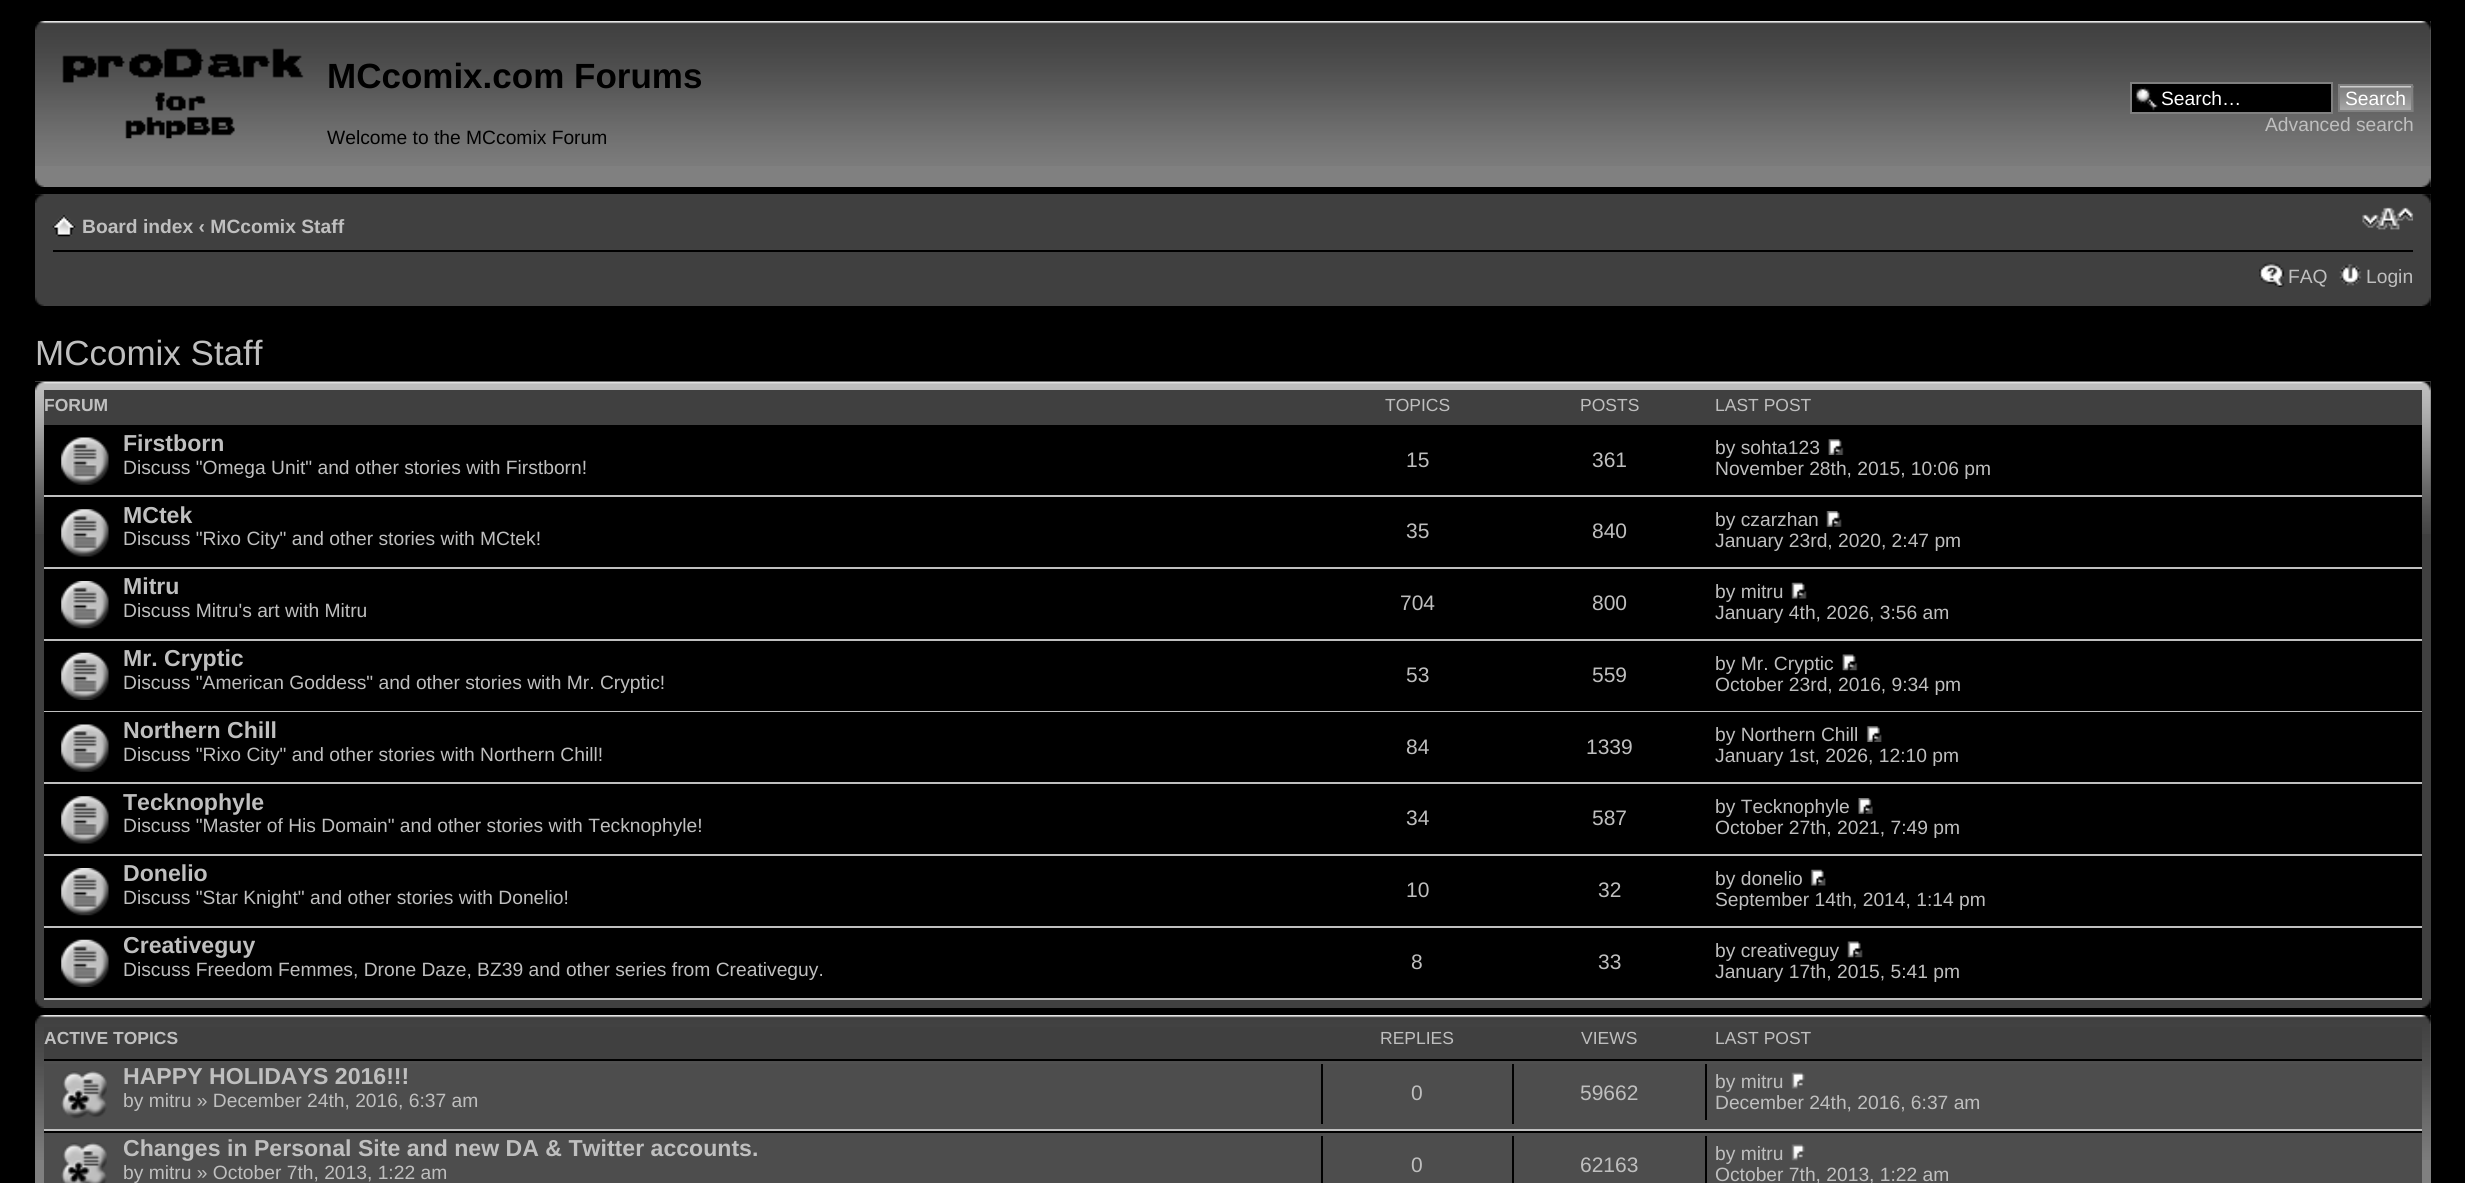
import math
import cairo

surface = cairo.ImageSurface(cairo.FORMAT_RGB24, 2465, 1183)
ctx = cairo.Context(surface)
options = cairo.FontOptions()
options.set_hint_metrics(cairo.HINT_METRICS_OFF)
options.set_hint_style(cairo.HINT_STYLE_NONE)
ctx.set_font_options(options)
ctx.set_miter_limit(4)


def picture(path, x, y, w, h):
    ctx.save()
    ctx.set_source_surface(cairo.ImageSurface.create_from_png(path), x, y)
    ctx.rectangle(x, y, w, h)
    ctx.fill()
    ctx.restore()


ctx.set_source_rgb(0, 0, 0)
ctx.paint()
ctx.set_source_rgb(0.502, 0.502, 0.502)
ctx.rectangle(35, 21, 2396, 166)
ctx.fill()
picture("img1.png", 35, 21, 2396, 145)
picture("img2.png", 35, 21, 10, 9)
picture("img3.png", 2421, 21, 10, 9)
picture("img4.png", 62, 48, 242, 91)
ctx.select_font_face("Liberation Sans", cairo.FONT_SLANT_NORMAL, cairo.FONT_WEIGHT_BOLD)
ctx.set_font_size(35)
ctx.set_source_rgb(0, 0, 0)
ctx.move_to(327, 88)
ctx.show_text("MCcomix.com Forums")
ctx.select_font_face("Liberation Sans")
ctx.set_font_size(19.25)
ctx.move_to(327, 144)
ctx.show_text("Welcome to the MCcomix Forum")
ctx.rectangle(2132, 84, 199, 28)
ctx.fill()
picture("img5.png", 2135, 87, 23, 24)
ctx.rectangle(2131, 83, 201, 30)
ctx.set_source_rgb(0.502, 0.502, 0.502)
ctx.stroke()
ctx.set_source_rgb(1, 1, 1)
ctx.move_to(2161, 105)
ctx.show_text("Search…")
picture("img6.png", 2340, 85, 74, 27)
ctx.rectangle(2339, 85, 73, 26)
ctx.set_source_rgb(0.502, 0.502, 0.502)
ctx.stroke()
ctx.set_source_rgb(1, 1, 1)
ctx.move_to(2345, 105)
ctx.show_text("Search")
ctx.set_source_rgb(0.749, 0.749, 0.749)
ctx.move_to(2265, 131)
ctx.show_text("Advanced search")
picture("img7.png", 35, 178, 9, 9)
picture("img8.png", 2421, 178, 10, 9)
ctx.set_source_rgb(0.251, 0.251, 0.251)
ctx.rectangle(35, 194, 2396, 112)
ctx.fill()
picture("img9.png", 35, 194, 9, 9)
picture("img10.png", 2422, 194, 9, 9)
ctx.set_source_rgb(0, 0, 0)
ctx.rectangle(53, 250, 2360, 2)
ctx.fill()
picture("img11.png", 52, 215, 24, 22)
ctx.select_font_face("Liberation Sans", cairo.FONT_SLANT_NORMAL, cairo.FONT_WEIGHT_BOLD)
ctx.set_source_rgb(0.749, 0.749, 0.749)
ctx.move_to(82, 233)
ctx.show_text("Board index ‹ MCcomix Staff")
picture("img12.png", 2362, 207, 52, 23)
picture("img13.png", 2259, 262, 26, 25)
ctx.select_font_face("Liberation Sans")
ctx.move_to(2288, 283)
ctx.show_text("FAQ")
picture("img14.png", 2339, 264, 23, 22)
ctx.move_to(2366, 283)
ctx.show_text("Login")
picture("img15.png", 35, 297, 9, 9)
picture("img16.png", 2422, 297, 9, 9)
ctx.set_font_size(35)
ctx.move_to(35, 365)
ctx.show_text("MCcomix Staff")
ctx.set_source_rgb(0.251, 0.251, 0.251)
ctx.rectangle(35, 382, 2396, 626)
ctx.fill()
picture("img17.png", 35, 381, 2396, 153)
picture("img18.png", 35, 381, 10, 10)
picture("img19.png", 2421, 381, 10, 10)
ctx.rectangle(44, 390, 2378, 35)
ctx.fill()
ctx.select_font_face("Liberation Sans", cairo.FONT_SLANT_NORMAL, cairo.FONT_WEIGHT_BOLD)
ctx.set_font_size(17.5)
ctx.set_source_rgb(0.749, 0.749, 0.749)
ctx.move_to(44, 411)
ctx.show_text("FORUM")
ctx.select_font_face("Liberation Sans")
ctx.move_to(1385, 411)
ctx.show_text("TOPICS")
ctx.move_to(1580, 411)
ctx.show_text("POSTS")
ctx.move_to(1715, 411)
ctx.show_text("LAST POST")
ctx.set_source_rgb(0, 0, 0)
ctx.rectangle(44, 425, 2378, 573)
ctx.fill()
ctx.set_source_rgb(0.749, 0.749, 0.749)
ctx.rectangle(44, 495, 2378, 2)
ctx.fill()
picture("img20.png", 61, 437, 48, 48)
ctx.select_font_face("Liberation Sans", cairo.FONT_SLANT_NORMAL, cairo.FONT_WEIGHT_BOLD)
ctx.set_font_size(23.1)
ctx.move_to(123, 451)
ctx.show_text("Firstborn")
ctx.select_font_face("Liberation Sans")
ctx.set_font_size(19.25)
ctx.move_to(123, 474)
ctx.show_text("Discuss \"Omega Unit\" and other stories with Firstborn!")
ctx.set_font_size(21)
ctx.move_to(1406, 467)
ctx.show_text("15")
ctx.move_to(1592, 467)
ctx.show_text("361")
ctx.set_font_size(19.25)
ctx.move_to(1715, 454)
ctx.show_text("by sohta123")
picture("img21.png", 1828, 439, 16, 16)
ctx.move_to(1715, 475)
ctx.show_text("November 28th, 2015, 10:06 pm")
ctx.rectangle(44, 567, 2378, 2)
ctx.fill()
picture("img22.png", 61, 509, 48, 48)
ctx.select_font_face("Liberation Sans", cairo.FONT_SLANT_NORMAL, cairo.FONT_WEIGHT_BOLD)
ctx.set_font_size(23.1)
ctx.move_to(123, 523)
ctx.show_text("MCtek")
ctx.select_font_face("Liberation Sans")
ctx.set_font_size(19.25)
ctx.move_to(123, 545)
ctx.show_text("Discuss \"Rixo City\" and other stories with MCtek!")
ctx.set_font_size(21)
ctx.move_to(1406, 538)
ctx.show_text("35")
ctx.move_to(1592, 538)
ctx.show_text("840")
ctx.set_font_size(19.25)
ctx.move_to(1715, 526)
ctx.show_text("by czarzhan")
picture("img23.png", 1826, 511, 16, 16)
ctx.move_to(1715, 547)
ctx.show_text("January 23rd, 2020, 2:47 pm")
ctx.rectangle(44, 639, 2378, 2)
ctx.fill()
picture("img24.png", 61, 581, 48, 48)
ctx.select_font_face("Liberation Sans", cairo.FONT_SLANT_NORMAL, cairo.FONT_WEIGHT_BOLD)
ctx.set_font_size(23.1)
ctx.move_to(123, 594)
ctx.show_text("Mitru")
ctx.select_font_face("Liberation Sans")
ctx.set_font_size(19.25)
ctx.move_to(123, 617)
ctx.show_text("Discuss Mitru's art with Mitru")
ctx.set_font_size(21)
ctx.move_to(1400, 610)
ctx.show_text("704")
ctx.move_to(1592, 610)
ctx.show_text("800")
ctx.set_font_size(19.25)
ctx.move_to(1715, 598)
ctx.show_text("by mitru")
picture("img25.png", 1791, 582, 16, 17)
ctx.move_to(1715, 619)
ctx.show_text("January 4th, 2026, 3:56 am")
ctx.rectangle(44, 711, 2378, 1)
ctx.fill()
picture("img26.png", 61, 652, 48, 48)
ctx.select_font_face("Liberation Sans", cairo.FONT_SLANT_NORMAL, cairo.FONT_WEIGHT_BOLD)
ctx.set_font_size(23.1)
ctx.move_to(123, 666)
ctx.show_text("Mr. Cryptic")
ctx.select_font_face("Liberation Sans")
ctx.set_font_size(19.25)
ctx.move_to(123, 689)
ctx.show_text("Discuss \"American Goddess\" and other stories with Mr. Cryptic!")
ctx.set_font_size(21)
ctx.move_to(1406, 682)
ctx.show_text("53")
ctx.move_to(1592, 682)
ctx.show_text("559")
ctx.set_font_size(19.25)
ctx.move_to(1715, 670)
ctx.show_text("by Mr. Cryptic")
picture("img27.png", 1842, 654, 16, 17)
ctx.move_to(1715, 691)
ctx.show_text("October 23rd, 2016, 9:34 pm")
ctx.rectangle(44, 782, 2378, 2)
ctx.fill()
picture("img20.png", 61, 724, 48, 48)
ctx.select_font_face("Liberation Sans", cairo.FONT_SLANT_NORMAL, cairo.FONT_WEIGHT_BOLD)
ctx.set_font_size(23.1)
ctx.move_to(123, 738)
ctx.show_text("Northern Chill")
ctx.select_font_face("Liberation Sans")
ctx.set_font_size(19.25)
ctx.move_to(123, 761)
ctx.show_text("Discuss \"Rixo City\" and other stories with Northern Chill!")
ctx.set_font_size(21)
ctx.move_to(1406, 754)
ctx.show_text("84")
ctx.move_to(1586, 754)
ctx.show_text("1339")
ctx.set_font_size(19.25)
ctx.move_to(1715, 741)
ctx.show_text("by Northern Chill")
picture("img28.png", 1866, 726, 16, 16)
ctx.move_to(1715, 762)
ctx.show_text("January 1st, 2026, 12:10 pm")
ctx.rectangle(44, 854, 2378, 2)
ctx.fill()
picture("img22.png", 61, 796, 48, 48)
ctx.select_font_face("Liberation Sans", cairo.FONT_SLANT_NORMAL, cairo.FONT_WEIGHT_BOLD)
ctx.set_font_size(23.1)
ctx.move_to(123, 810)
ctx.show_text("Tecknophyle")
ctx.select_font_face("Liberation Sans")
ctx.set_font_size(19.25)
ctx.move_to(123, 832)
ctx.show_text("Discuss \"Master of His Domain\" and other stories with Tecknophyle!")
ctx.set_font_size(21)
ctx.move_to(1406, 825)
ctx.show_text("34")
ctx.move_to(1592, 825)
ctx.show_text("587")
ctx.set_font_size(19.25)
ctx.move_to(1715, 813)
ctx.show_text("by Tecknophyle")
picture("img29.png", 1858, 798, 15, 16)
ctx.move_to(1715, 834)
ctx.show_text("October 27th, 2021, 7:49 pm")
ctx.rectangle(44, 926, 2378, 2)
ctx.fill()
picture("img24.png", 61, 868, 48, 48)
ctx.select_font_face("Liberation Sans", cairo.FONT_SLANT_NORMAL, cairo.FONT_WEIGHT_BOLD)
ctx.set_font_size(23.1)
ctx.move_to(123, 881)
ctx.show_text("Donelio")
ctx.select_font_face("Liberation Sans")
ctx.set_font_size(19.25)
ctx.move_to(123, 904)
ctx.show_text("Discuss \"Star Knight\" and other stories with Donelio!")
ctx.set_font_size(21)
ctx.move_to(1406, 897)
ctx.show_text("10")
ctx.move_to(1598, 897)
ctx.show_text("32")
ctx.set_font_size(19.25)
ctx.move_to(1715, 885)
ctx.show_text("by donelio")
picture("img30.png", 1810, 869, 16, 17)
ctx.move_to(1715, 906)
ctx.show_text("September 14th, 2014, 1:14 pm")
ctx.rectangle(44, 998, 2378, 2)
ctx.fill()
picture("img26.png", 61, 939, 48, 48)
ctx.select_font_face("Liberation Sans", cairo.FONT_SLANT_NORMAL, cairo.FONT_WEIGHT_BOLD)
ctx.set_font_size(23.1)
ctx.move_to(123, 953)
ctx.show_text("Creativeguy")
ctx.select_font_face("Liberation Sans")
ctx.set_font_size(19.25)
ctx.move_to(123, 976)
ctx.show_text("Discuss Freedom Femmes, Drone Daze, BZ39 and other series from Creativeguy.")
ctx.set_font_size(21)
ctx.move_to(1411, 969)
ctx.show_text("8")
ctx.move_to(1598, 969)
ctx.show_text("33")
ctx.set_font_size(19.25)
ctx.move_to(1715, 957)
ctx.show_text("by creativeguy")
picture("img31.png", 1847, 941, 16, 17)
ctx.move_to(1715, 978)
ctx.show_text("January 17th, 2015, 5:41 pm")
picture("img32.png", 35, 999, 9, 9)
picture("img33.png", 2422, 999, 9, 9)
ctx.set_source_rgb(0.502, 0.502, 0.502)
ctx.rectangle(35, 1015, 2396, 168)
ctx.fill()
picture("img34.png", 35, 1015, 2396, 145)
picture("img2.png", 35, 1015, 10, 9)
picture("img3.png", 2421, 1015, 10, 9)
ctx.set_source_rgb(0.251, 0.251, 0.251)
ctx.rectangle(44, 1027, 2378, 32)
ctx.fill()
ctx.select_font_face("Liberation Sans", cairo.FONT_SLANT_NORMAL, cairo.FONT_WEIGHT_BOLD)
ctx.set_font_size(17.5)
ctx.set_source_rgb(0.749, 0.749, 0.749)
ctx.move_to(44, 1044)
ctx.show_text("ACTIVE TOPICS")
ctx.select_font_face("Liberation Sans")
ctx.move_to(1380, 1044)
ctx.show_text("REPLIES")
ctx.move_to(1581, 1044)
ctx.show_text("VIEWS")
ctx.move_to(1715, 1044)
ctx.show_text("LAST POST")
ctx.set_source_rgb(0.302, 0.302, 0.302)
ctx.rectangle(44, 1064, 2378, 65)
ctx.fill()
ctx.set_source_rgb(0, 0, 0)
ctx.rectangle(44, 1059, 2378, 2)
ctx.fill()
ctx.set_source_rgb(0.749, 0.749, 0.749)
ctx.rectangle(44, 1129, 2378, 2)
ctx.fill()
picture("img35.png", 61, 1071, 46, 48)
ctx.select_font_face("Liberation Sans", cairo.FONT_SLANT_NORMAL, cairo.FONT_WEIGHT_BOLD)
ctx.set_font_size(23.1)
ctx.move_to(123, 1084)
ctx.show_text("HAPPY HOLIDAYS 2016!!!")
ctx.select_font_face("Liberation Sans")
ctx.set_font_size(19.25)
ctx.move_to(123, 1107)
ctx.show_text("by mitru » December 24th, 2016, 6:37 am")
ctx.set_source_rgb(0, 0, 0)
ctx.rectangle(1321, 1064, 2, 60)
ctx.fill()
ctx.set_font_size(21)
ctx.set_source_rgb(0.749, 0.749, 0.749)
ctx.move_to(1411, 1100)
ctx.show_text("0")
ctx.set_source_rgb(0, 0, 0)
ctx.rectangle(1512, 1064, 2, 60)
ctx.fill()
ctx.set_source_rgb(0.749, 0.749, 0.749)
ctx.move_to(1580, 1100)
ctx.show_text("59662")
ctx.set_source_rgb(0, 0, 0)
ctx.rectangle(1705, 1064, 2, 56)
ctx.fill()
ctx.set_font_size(19.25)
ctx.set_source_rgb(0.749, 0.749, 0.749)
ctx.move_to(1715, 1088)
ctx.show_text("by mitru")
picture("img36.png", 1791, 1072, 14, 17)
ctx.move_to(1715, 1109)
ctx.show_text("December 24th, 2016, 6:37 am")
ctx.set_source_rgb(0.302, 0.302, 0.302)
ctx.rectangle(44, 1133, 2378, 50)
ctx.fill()
ctx.set_source_rgb(0, 0, 0)
ctx.rectangle(44, 1131, 2378, 2)
ctx.fill()
picture("img37.png", 61, 1142, 46, 41)
ctx.select_font_face("Liberation Sans", cairo.FONT_SLANT_NORMAL, cairo.FONT_WEIGHT_BOLD)
ctx.set_font_size(23.1)
ctx.set_source_rgb(0.749, 0.749, 0.749)
ctx.move_to(123, 1156)
ctx.show_text("Changes in Personal Site and new DA & Twitter accounts.")
ctx.select_font_face("Liberation Sans")
ctx.set_font_size(19.25)
ctx.move_to(123, 1179)
ctx.show_text("by mitru » October 7th, 2013, 1:22 am")
ctx.set_source_rgb(0, 0, 0)
ctx.rectangle(1321, 1136, 2, 47)
ctx.fill()
ctx.set_font_size(21)
ctx.set_source_rgb(0.749, 0.749, 0.749)
ctx.move_to(1411, 1172)
ctx.show_text("0")
ctx.set_source_rgb(0, 0, 0)
ctx.rectangle(1512, 1136, 2, 47)
ctx.fill()
ctx.set_source_rgb(0.749, 0.749, 0.749)
ctx.move_to(1580, 1172)
ctx.show_text("62163")
ctx.set_source_rgb(0, 0, 0)
ctx.rectangle(1705, 1136, 2, 47)
ctx.fill()
ctx.set_font_size(19.25)
ctx.set_source_rgb(0.749, 0.749, 0.749)
ctx.move_to(1715, 1160)
ctx.show_text("by mitru")
picture("img38.png", 1791, 1144, 14, 17)
ctx.move_to(1715, 1181)
ctx.show_text("October 7th, 2013, 1:22 am")
surface.write_to_png("page.png")
